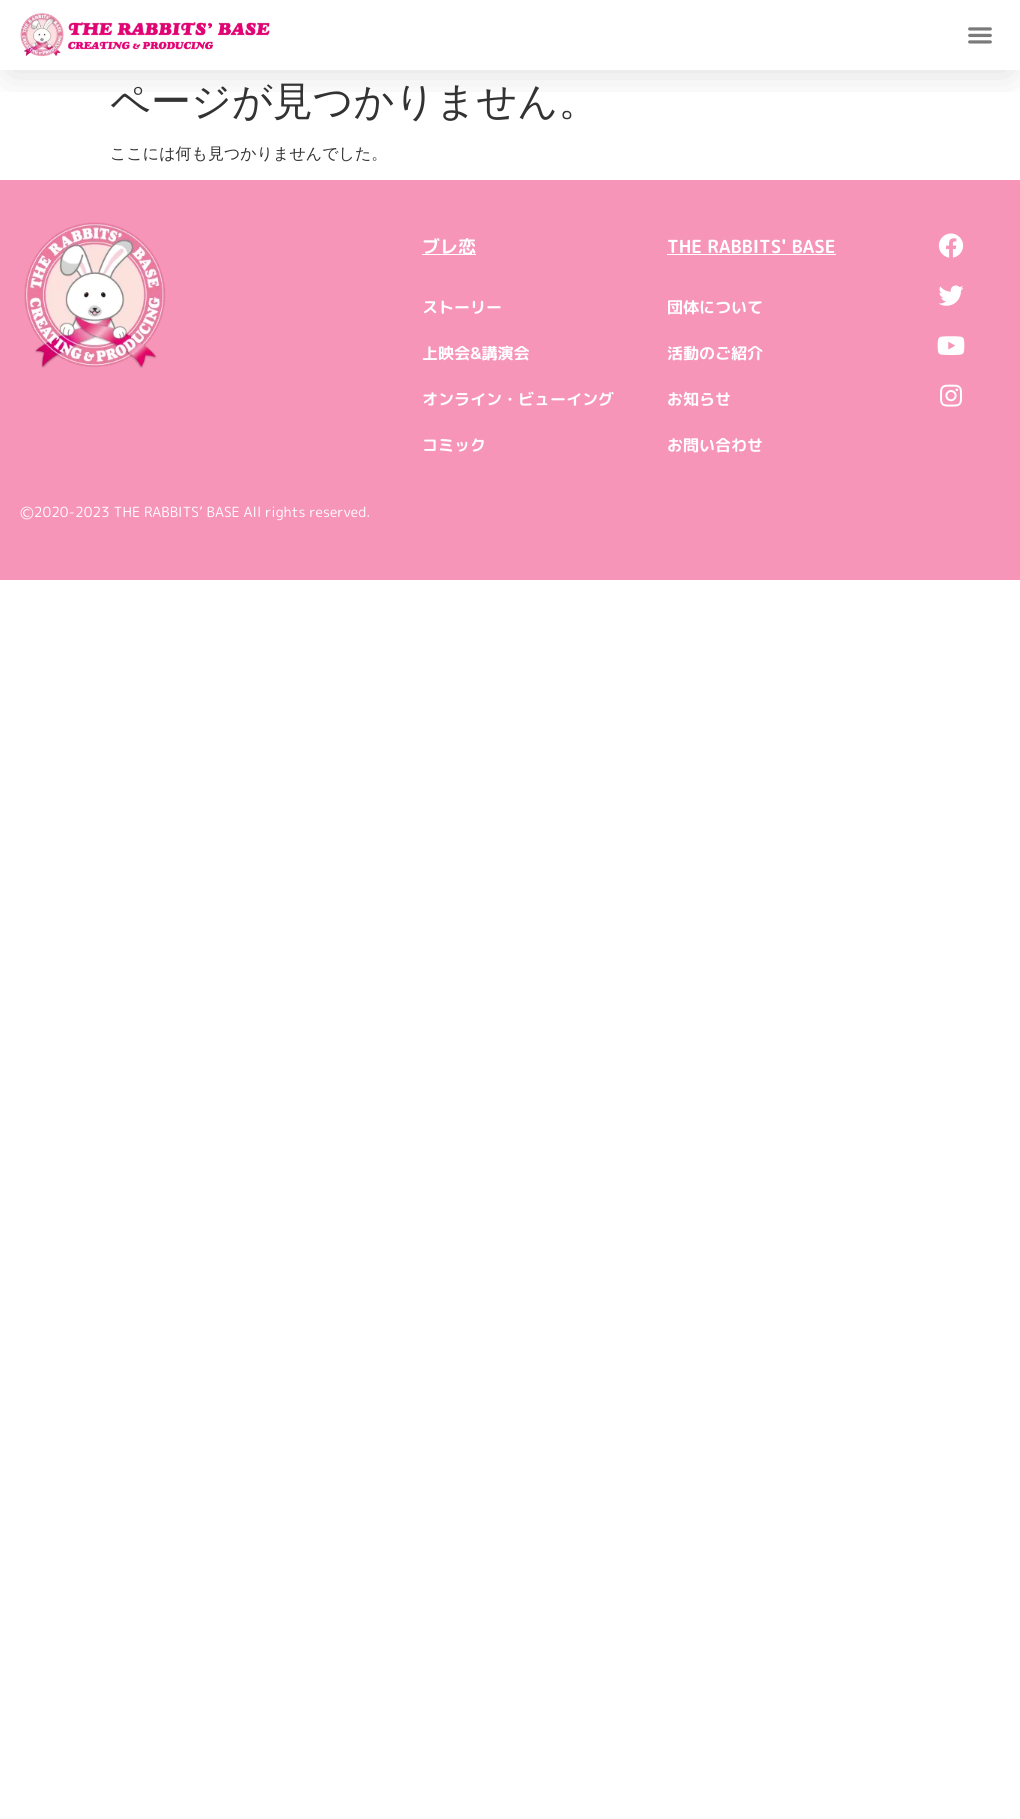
import math
import cairo

surface = cairo.ImageSurface(cairo.FORMAT_RGB24, 1020, 1819)
ctx = cairo.Context(surface)
options = cairo.FontOptions()
options.set_hint_metrics(cairo.HINT_METRICS_OFF)
options.set_hint_style(cairo.HINT_STYLE_NONE)
ctx.set_font_options(options)
ctx.set_miter_limit(4)


def round_rect(x, y, w, h, r):
    ctx.new_sub_path()
    for i, (u, v) in enumerate([(x + w - r, y + h - r), (x + r, y + h - r), (x + r, y + r), (x + w - r, y + r)]):
        ctx.arc(u, v, r, i * math.pi / 2, (i + 1) * math.pi / 2)
    ctx.close_path()


def shadow(x, y, w, h, r, blur, alpha):
    ctx.push_group_with_content(cairo.CONTENT_ALPHA)
    ctx.set_operator(cairo.OPERATOR_SOURCE)
    for i in range(15, -16, -2):
        e = blur * i / 6
        if min(w, h) + 2 * e > 0:
            ctx.set_source_rgba(0, 0, 0, alpha * math.erfc((i - 1) / 8.5) / 2)
            round_rect(x - e, y - e, w + 2 * e, h + 2 * e, max(0, min(r + e + blur * .6, min(w, h) / 2 + e)))
            ctx.fill()
    ctx.mask(ctx.pop_group())


def picture(path, x, y, w, h):
    ctx.save()
    ctx.set_source_surface(cairo.ImageSurface.create_from_png(path), x, y)
    ctx.rectangle(x, y, w, h)
    ctx.fill()
    ctx.restore()


ctx.set_source_rgb(1, 1, 1)
ctx.paint()
ctx.save()
ctx.rectangle(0, 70, 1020, 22)
ctx.clip()
ctx.set_source_rgb(0, 0, 0)
shadow(10, 20, 1000, 50, 0, 20, 0.15)
ctx.restore()
picture("img1.png", 20, 12, 250, 45)
picture("img2.png", 968, 27, 24, 17)
ctx.select_font_face("WenQuanYi Zen Hei Medium")
ctx.set_font_size(40)
ctx.set_source_rgb(0.2, 0.2, 0.2)
ctx.move_to(110, 115)
ctx.show_text("ページが見つかりません。")
ctx.set_font_size(16)
ctx.move_to(110, 159)
ctx.show_text("ここには何も見つかりませんでした。")
ctx.set_source_rgb(0.965, 0.584, 0.722)
ctx.rectangle(0, 180, 1020, 400)
ctx.fill()
picture("img3.png", 24, 222, 142, 146)
ctx.set_source_rgb(1, 1, 1)
ctx.rectangle(422, 254, 54, 1)
ctx.fill()
ctx.select_font_face("Rounded Mplus 1c Bold", cairo.FONT_SLANT_NORMAL, cairo.FONT_WEIGHT_BOLD)
ctx.set_font_size(18)
ctx.move_to(422, 253)
ctx.show_text("ブレ恋")
ctx.set_font_size(16)
ctx.move_to(422, 313)
ctx.show_text("ストーリー")
ctx.move_to(422, 359)
ctx.show_text("上映会&講演会")
ctx.move_to(422, 405)
ctx.show_text("オンライン・ビューイング")
ctx.move_to(422, 451)
ctx.show_text("コミック")
ctx.set_font_size(18)
ctx.move_to(667, 253)
ctx.show_text("THE RABBITS' BASE")
ctx.rectangle(667, 254, 169, 1)
ctx.fill()
ctx.set_font_size(16)
ctx.move_to(667, 313)
ctx.show_text("団体について")
ctx.move_to(667, 359)
ctx.show_text("活動のご紹介")
ctx.move_to(667, 405)
ctx.show_text("お知らせ")
ctx.move_to(667, 451)
ctx.show_text("お問い合わせ")
picture("img4.png", 938, 233, 26, 25)
picture("img5.png", 938, 285, 26, 21)
picture("img6.png", 937, 336, 28, 19)
picture("img7.png", 940, 384, 22, 23)
ctx.select_font_face("Rounded Mplus 1c")
ctx.set_font_size(14)
ctx.move_to(20, 517)
ctx.show_text("Ⓒ2020-2023 THE RABBITS’ BASE All rights reserved.")
surface.write_to_png("page.png")
